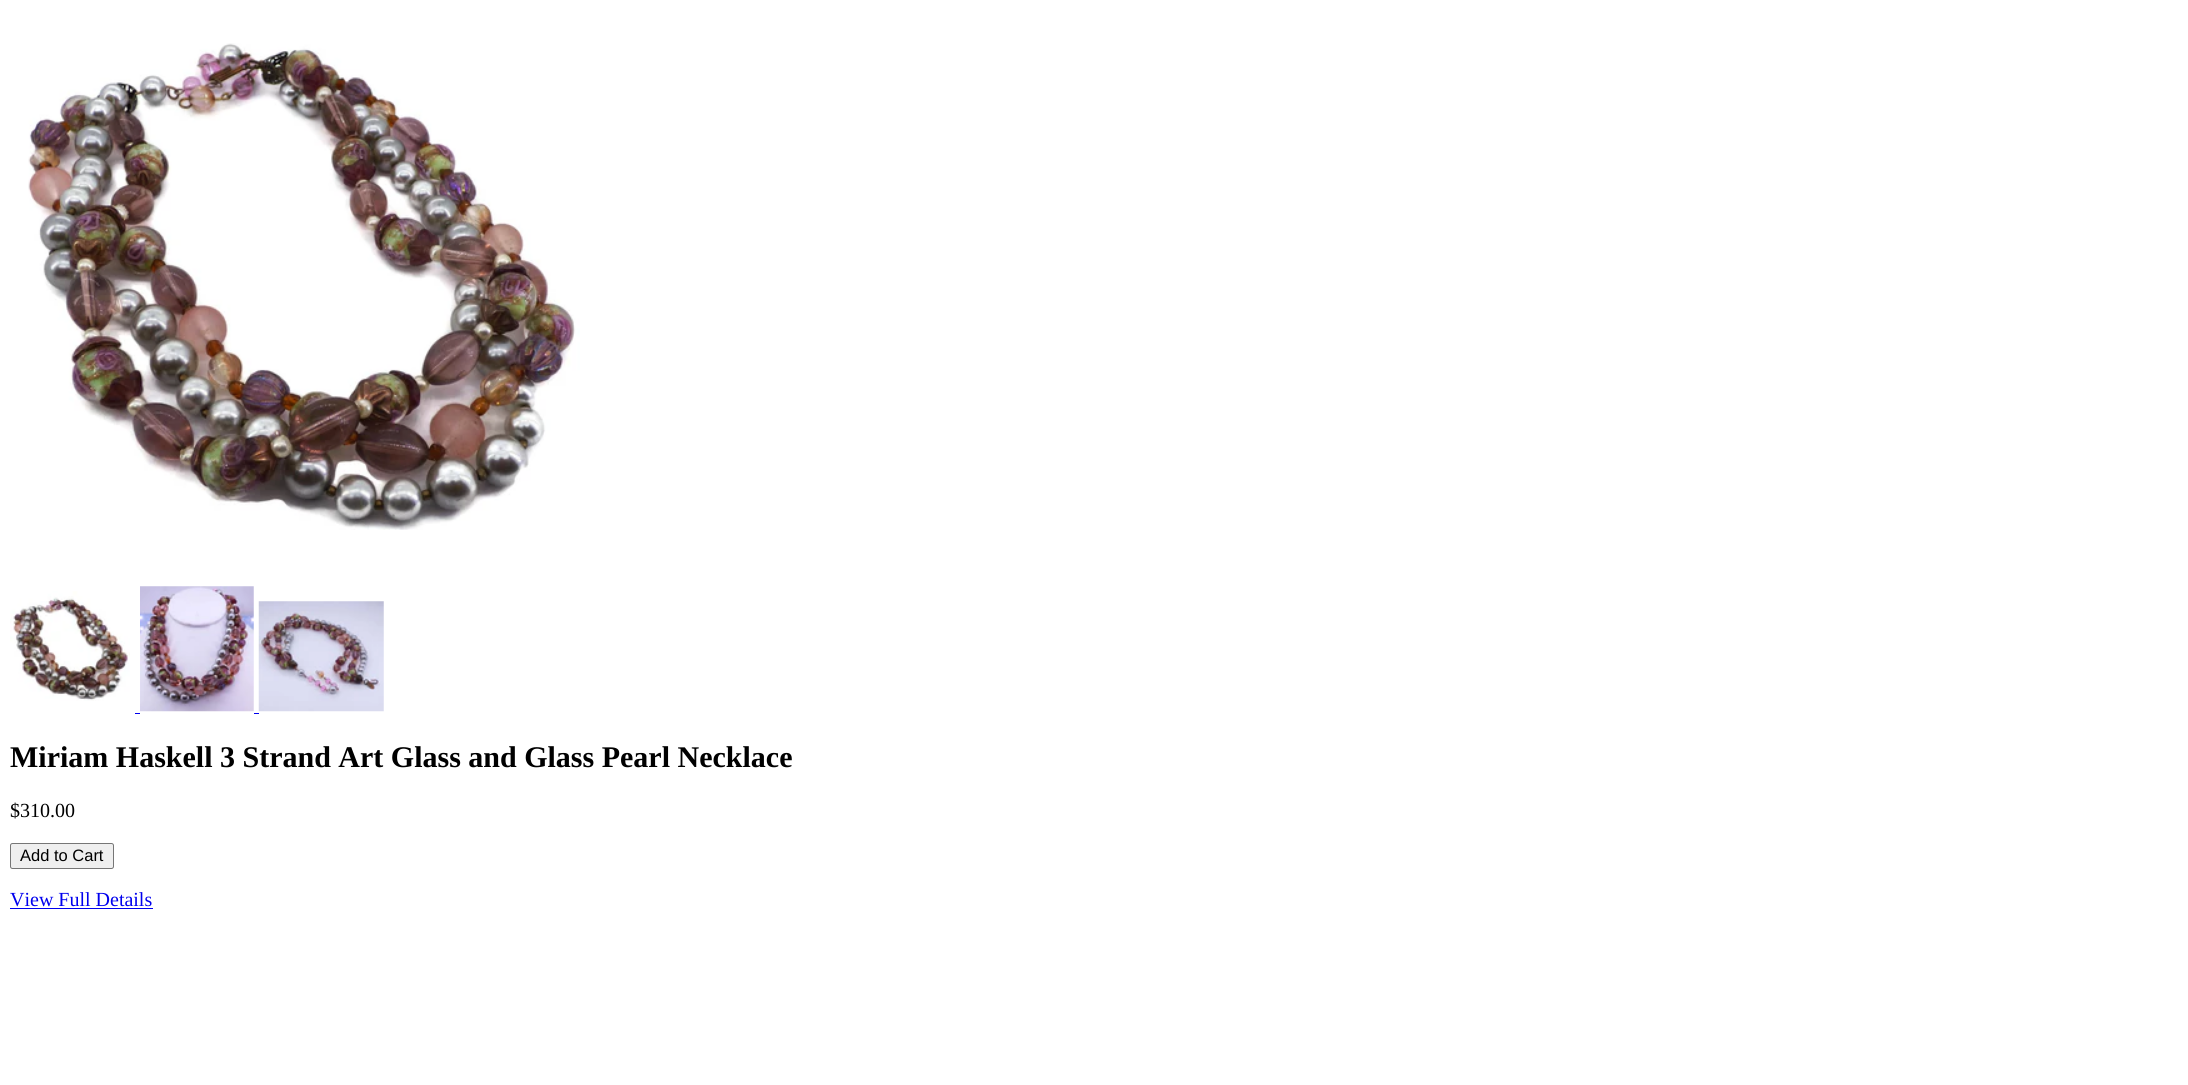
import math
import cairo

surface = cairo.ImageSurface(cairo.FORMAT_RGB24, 2188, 1085)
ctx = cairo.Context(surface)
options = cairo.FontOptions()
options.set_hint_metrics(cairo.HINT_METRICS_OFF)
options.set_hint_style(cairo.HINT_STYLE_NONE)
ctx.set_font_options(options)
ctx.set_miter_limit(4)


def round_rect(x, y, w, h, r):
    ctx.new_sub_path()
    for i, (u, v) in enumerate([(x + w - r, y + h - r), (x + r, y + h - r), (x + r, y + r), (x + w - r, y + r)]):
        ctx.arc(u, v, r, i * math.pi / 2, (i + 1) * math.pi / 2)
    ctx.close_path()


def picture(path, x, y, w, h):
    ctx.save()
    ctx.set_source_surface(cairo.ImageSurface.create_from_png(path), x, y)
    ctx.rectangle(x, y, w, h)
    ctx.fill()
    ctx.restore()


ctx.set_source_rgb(1, 1, 1)
ctx.paint()
picture("img1.png", 28, 43, 552, 487)
picture("img2.png", 10, 591, 120, 110)
picture("img3.png", 140, 586, 114, 126)
picture("img4.png", 258, 601, 126, 111)
ctx.set_source_rgb(0, 0, 0.933)
ctx.rectangle(135, 713, 5, 1)
ctx.fill()
ctx.rectangle(254, 713, 5, 1)
ctx.fill()
ctx.select_font_face("Liberation Serif", cairo.FONT_SLANT_NORMAL, cairo.FONT_WEIGHT_BOLD)
ctx.set_font_size(30)
ctx.set_source_rgb(0, 0, 0)
ctx.move_to(10, 767)
ctx.show_text("Miriam Haskell 3 Strand Art Glass and Glass Pearl Necklace")
ctx.select_font_face("Liberation Serif")
ctx.set_font_size(20)
ctx.move_to(10, 817)
ctx.show_text("$310.00")
ctx.set_source_rgb(0.937, 0.937, 0.937)
round_rect(10.5, 843.5, 103, 25, 2)
ctx.fill_preserve()
ctx.set_source_rgb(0.463, 0.463, 0.463)
ctx.set_line_width(1)
ctx.stroke()
ctx.select_font_face("Liberation Sans")
ctx.set_font_size(16.5)
ctx.set_source_rgb(0, 0, 0)
ctx.move_to(20, 861)
ctx.show_text("Add to Cart")
ctx.select_font_face("Liberation Serif")
ctx.set_font_size(20)
ctx.set_source_rgb(0, 0, 0.933)
ctx.move_to(10, 906)
ctx.show_text("View Full Details")
ctx.rectangle(10, 908, 143, 1)
ctx.fill()
surface.write_to_png("page.png")
